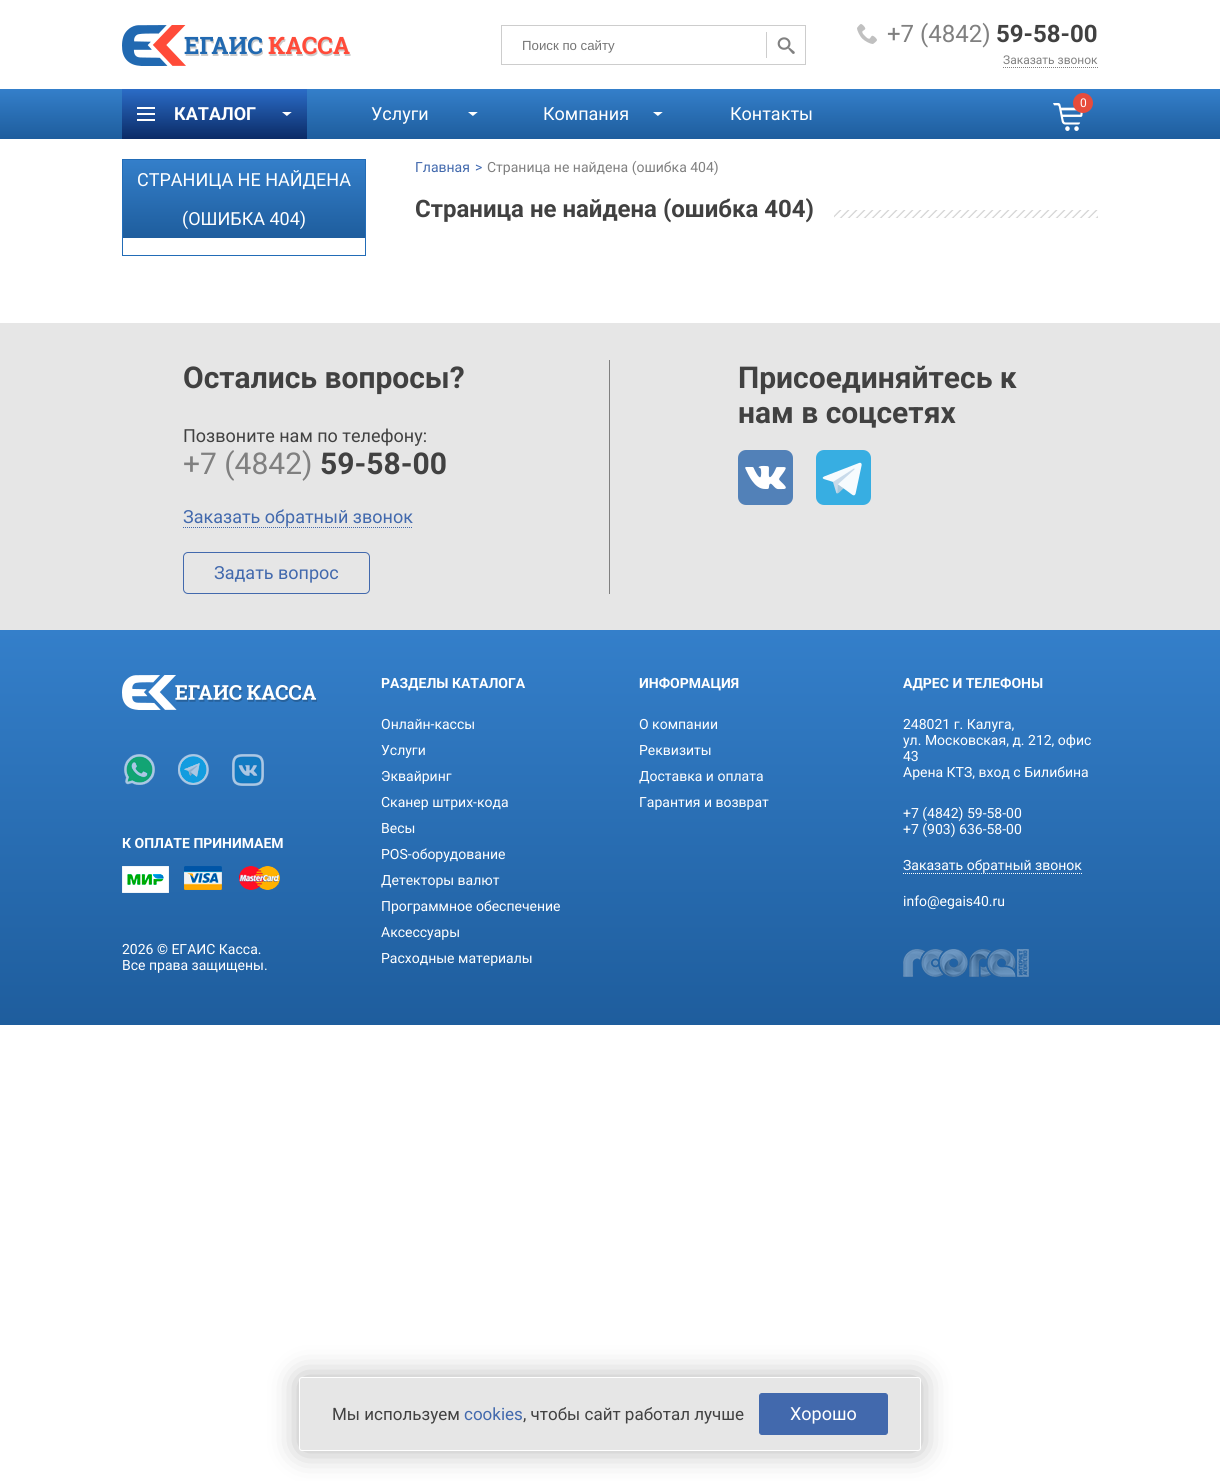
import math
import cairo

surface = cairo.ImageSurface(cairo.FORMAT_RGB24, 1220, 1481)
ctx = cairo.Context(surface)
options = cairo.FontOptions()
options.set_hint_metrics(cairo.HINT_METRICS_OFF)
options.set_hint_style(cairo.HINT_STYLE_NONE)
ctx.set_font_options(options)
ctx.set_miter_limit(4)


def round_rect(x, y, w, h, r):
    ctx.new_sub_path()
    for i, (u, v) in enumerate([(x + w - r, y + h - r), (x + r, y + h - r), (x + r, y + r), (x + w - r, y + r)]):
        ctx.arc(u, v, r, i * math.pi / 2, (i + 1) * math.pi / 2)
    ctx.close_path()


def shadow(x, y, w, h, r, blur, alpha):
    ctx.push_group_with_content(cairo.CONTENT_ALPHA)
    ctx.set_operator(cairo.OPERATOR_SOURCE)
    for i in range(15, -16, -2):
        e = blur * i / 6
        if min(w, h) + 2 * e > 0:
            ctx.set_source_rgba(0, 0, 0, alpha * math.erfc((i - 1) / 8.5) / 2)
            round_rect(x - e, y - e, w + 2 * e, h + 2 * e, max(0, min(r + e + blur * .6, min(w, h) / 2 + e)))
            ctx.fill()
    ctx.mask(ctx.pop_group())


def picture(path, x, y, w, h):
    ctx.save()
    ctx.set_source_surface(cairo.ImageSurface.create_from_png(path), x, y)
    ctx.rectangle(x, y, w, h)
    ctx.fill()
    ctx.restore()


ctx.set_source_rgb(1, 1, 1)
ctx.paint()
picture("img1.png", 122, 25, 229, 41)
ctx.rectangle(501.5, 25.5, 304, 39)
ctx.set_source_rgb(0.804, 0.804, 0.804)
ctx.set_line_width(1)
ctx.stroke()
ctx.select_font_face("Liberation Sans")
ctx.set_font_size(13.25)
ctx.set_source_rgb(0.459, 0.459, 0.459)
ctx.move_to(522, 50)
ctx.show_text("Поиск по сайту")
picture("img2.png", 777, 37, 18, 17)
ctx.set_source_rgb(0.804, 0.804, 0.804)
ctx.rectangle(766, 32, 1, 26)
ctx.fill()
picture("img3.png", 857, 24, 20, 20)
ctx.select_font_face("Roboto")
ctx.set_font_size(24)
ctx.set_source_rgb(0.502, 0.502, 0.502)
ctx.move_to(887, 42)
ctx.show_text("+7 (4842)")
ctx.select_font_face("Roboto", cairo.FONT_SLANT_NORMAL, cairo.FONT_WEIGHT_BOLD)
ctx.set_source_rgb(0.255, 0.255, 0.255)
ctx.move_to(996, 42)
ctx.show_text("59-58-00")
ctx.select_font_face("Roboto")
ctx.set_font_size(12)
ctx.set_source_rgb(0.502, 0.502, 0.502)
ctx.move_to(1003, 64)
ctx.show_text("Заказать звонок")
ctx.new_path()
ctx.move_to(1003, 67.5)
ctx.line_to(1098, 67.5)
ctx.set_dash([1, 1])
ctx.stroke()
gradient = cairo.LinearGradient(610, 139, 610, 89)
gradient.add_color_stop_rgba(0, 0.118, 0.365, 0.616, 1)
gradient.add_color_stop_rgba(1, 0.204, 0.498, 0.792, 1)
ctx.set_source(gradient)
ctx.rectangle(0, 89, 1220, 50)
ctx.fill()
picture("img4.png", 1053, 103, 30, 28)
ctx.set_source_rgb(0.906, 0.298, 0.235)
ctx.arc(1083, 103, 10, 0, 2 * math.pi)
ctx.fill()
ctx.set_source_rgb(1, 1, 1)
ctx.move_to(1080, 107)
ctx.show_text("0")
gradient = cairo.LinearGradient(215, 139, 215, 89)
gradient.add_color_stop_rgba(0, 0.043, 0.169, 0.4, 1)
gradient.add_color_stop_rgba(1, 0.169, 0.424, 0.78, 1)
ctx.set_source(gradient)
ctx.rectangle(122, 89, 185, 50)
ctx.fill()
picture("img5.png", 137, 107, 18, 14)
ctx.select_font_face("Roboto", cairo.FONT_SLANT_NORMAL, cairo.FONT_WEIGHT_BOLD)
ctx.set_font_size(18)
ctx.set_source_rgb(1, 1, 1)
ctx.move_to(174, 120)
ctx.show_text("КАТАЛОГ")
picture("img6.png", 282, 112, 10, 4)
ctx.select_font_face("Roboto")
ctx.move_to(371, 120)
ctx.show_text("Услуги")
picture("img7.png", 468, 112, 10, 4)
ctx.move_to(543, 120)
ctx.show_text("Компания")
picture("img7.png", 653, 112, 10, 4)
ctx.move_to(730, 120)
ctx.show_text("Контакты")
ctx.rectangle(122.5, 159.5, 243, 96)
ctx.set_source_rgb(0.133, 0.424, 0.718)
ctx.set_dash([])
ctx.stroke()
gradient = cairo.LinearGradient(244, 238, 244, 160)
gradient.add_color_stop_rgba(0, 0.118, 0.365, 0.616, 1)
gradient.add_color_stop_rgba(1, 0.204, 0.498, 0.792, 1)
ctx.set_source(gradient)
ctx.rectangle(123, 160, 242, 78)
ctx.fill()
ctx.set_source_rgb(1, 1, 1)
ctx.move_to(137, 186)
ctx.show_text("СТРАНИЦА НЕ НАЙДЕНА")
ctx.move_to(182, 225)
ctx.show_text("(ОШИБКА 404)")
ctx.set_font_size(14)
ctx.set_source_rgb(0.259, 0.412, 0.678)
ctx.move_to(415, 172)
ctx.show_text("Главная")
ctx.set_source_rgb(0.267, 0.424, 0.702)
ctx.move_to(475, 172)
ctx.show_text(">")
ctx.set_source_rgb(0.502, 0.502, 0.502)
ctx.move_to(487, 172)
ctx.show_text("Страница не найдена (ошибка 404)")
picture("img8.png", 834, 210, 264, 8)
ctx.select_font_face("Roboto", cairo.FONT_SLANT_NORMAL, cairo.FONT_WEIGHT_BOLD)
ctx.set_font_size(24)
ctx.set_source_rgb(0.255, 0.255, 0.255)
ctx.move_to(415, 217)
ctx.show_text("Страница не найдена (ошибка 404)")
ctx.set_source_rgb(0.902, 0.902, 0.902)
ctx.rectangle(0, 323, 1220, 307)
ctx.fill()
ctx.set_source_rgb(0.502, 0.502, 0.502)
ctx.rectangle(609, 360, 1, 234)
ctx.fill()
ctx.set_font_size(30)
ctx.set_source_rgb(0.255, 0.255, 0.255)
ctx.move_to(183, 388)
ctx.show_text("Остались вопросы?")
ctx.select_font_face("Roboto")
ctx.set_font_size(18)
ctx.move_to(183, 442)
ctx.show_text("Позвоните нам по телефону:")
ctx.set_font_size(30)
ctx.set_source_rgb(0.502, 0.502, 0.502)
ctx.move_to(183, 474)
ctx.show_text("+7 (4842)")
ctx.select_font_face("Roboto", cairo.FONT_SLANT_NORMAL, cairo.FONT_WEIGHT_BOLD)
ctx.set_source_rgb(0.255, 0.255, 0.255)
ctx.move_to(320, 474)
ctx.show_text("59-58-00")
ctx.select_font_face("Roboto")
ctx.set_font_size(18)
ctx.set_source_rgb(0.259, 0.412, 0.678)
ctx.move_to(183, 523)
ctx.show_text("Заказать обратный звонок")
ctx.new_path()
ctx.move_to(183, 527.5)
ctx.line_to(413, 527.5)
ctx.set_dash([1, 1])
ctx.stroke()
round_rect(183.5, 552.5, 186, 41, 4.5)
ctx.set_dash([])
ctx.stroke()
ctx.move_to(214, 579)
ctx.show_text("Задать вопрос")
ctx.select_font_face("Roboto", cairo.FONT_SLANT_NORMAL, cairo.FONT_WEIGHT_BOLD)
ctx.set_font_size(30)
ctx.set_source_rgb(0.255, 0.255, 0.255)
ctx.move_to(738, 388)
ctx.show_text("Присоединяйтесь к")
ctx.move_to(738, 423)
ctx.show_text("нам в соцсетях")
picture("img9.png", 738, 450, 55, 55)
picture("img10.png", 816, 450, 55, 55)
gradient = cairo.LinearGradient(610, 1025, 610, 630)
gradient.add_color_stop_rgba(0, 0.118, 0.365, 0.616, 1)
gradient.add_color_stop_rgba(1, 0.204, 0.498, 0.792, 1)
ctx.set_source(gradient)
ctx.rectangle(0, 630, 1220, 395)
ctx.fill()
picture("img11.png", 122, 675, 195, 35)
picture("img12.png", 124, 754, 31, 31)
picture("img13.png", 178, 754, 31, 31)
picture("img14.png", 232, 754, 32, 32)
ctx.set_font_size(14)
ctx.set_source_rgb(1, 1, 1)
ctx.move_to(122, 848)
ctx.show_text("К ОПЛАТЕ ПРИНИМАЕМ")
picture("img15.png", 122, 866, 158, 27)
ctx.select_font_face("Roboto")
ctx.move_to(122, 954)
ctx.show_text("2026 © ЕГАИС Касса.")
ctx.move_to(122, 970)
ctx.show_text("Все права защищены.")
ctx.select_font_face("Roboto", cairo.FONT_SLANT_NORMAL, cairo.FONT_WEIGHT_BOLD)
ctx.move_to(381, 688)
ctx.show_text("РАЗДЕЛЫ КАТАЛОГА")
ctx.select_font_face("Roboto")
ctx.move_to(381, 729)
ctx.show_text("Онлайн-кассы")
ctx.move_to(381, 755)
ctx.show_text("Услуги")
ctx.move_to(381, 781)
ctx.show_text("Эквайринг")
ctx.move_to(381, 807)
ctx.show_text("Сканер штрих-кода")
ctx.move_to(381, 833)
ctx.show_text("Весы")
ctx.move_to(381, 859)
ctx.show_text("POS-оборудование")
ctx.move_to(381, 885)
ctx.show_text("Детекторы валют")
ctx.move_to(381, 911)
ctx.show_text("Программное обеспечение")
ctx.move_to(381, 937)
ctx.show_text("Аксессуары")
ctx.move_to(381, 963)
ctx.show_text("Расходные материалы")
ctx.select_font_face("Roboto", cairo.FONT_SLANT_NORMAL, cairo.FONT_WEIGHT_BOLD)
ctx.move_to(639, 688)
ctx.show_text("ИНФОРМАЦИЯ")
ctx.select_font_face("Roboto")
ctx.move_to(639, 729)
ctx.show_text("О компании")
ctx.move_to(639, 755)
ctx.show_text("Реквизиты")
ctx.move_to(639, 781)
ctx.show_text("Доставка и оплата")
ctx.move_to(639, 807)
ctx.show_text("Гарантия и возврат")
ctx.select_font_face("Roboto", cairo.FONT_SLANT_NORMAL, cairo.FONT_WEIGHT_BOLD)
ctx.move_to(903, 688)
ctx.show_text("АДРЕС И ТЕЛЕФОНЫ")
ctx.select_font_face("Roboto")
ctx.move_to(903, 729)
ctx.show_text("248021 г. Калуга,")
ctx.move_to(903, 745)
ctx.show_text("ул. Московская, д. 212, офис")
ctx.move_to(903, 761)
ctx.show_text("43")
ctx.move_to(903, 777)
ctx.show_text("Арена КТЗ, вход с Билибина")
ctx.move_to(903, 818)
ctx.show_text("+7 (4842) 59-58-00")
ctx.move_to(903, 834)
ctx.show_text("+7 (903) 636-58-00")
ctx.move_to(903, 870)
ctx.show_text("Заказать обратный звонок")
ctx.new_path()
ctx.move_to(903, 873.5)
ctx.line_to(1082, 873.5)
ctx.set_dash([1, 1])
ctx.stroke()
ctx.move_to(903, 906)
ctx.show_text("info@egais40.ru")
picture("img16.png", 903, 949, 126, 28)
ctx.set_source_rgb(0, 0, 0)
shadow(299, 1377, 622, 74, 3, 15, 0.3)
ctx.set_source_rgb(0.902, 0.902, 0.902)
round_rect(299.5, 1377.5, 621, 73, 2.5)
ctx.fill_preserve()
ctx.set_source_rgb(1, 1, 1)
ctx.set_dash([])
ctx.stroke()
ctx.set_font_size(17)
ctx.set_source_rgb(0.255, 0.255, 0.255)
ctx.move_to(332, 1420)
ctx.show_text("Мы используем")
ctx.set_source_rgb(0.259, 0.412, 0.678)
ctx.move_to(464, 1420)
ctx.show_text("cookies")
ctx.set_source_rgb(0.255, 0.255, 0.255)
ctx.move_to(523, 1420)
ctx.show_text(", чтобы сайт работал лучше")
ctx.set_source_rgb(0.259, 0.412, 0.678)
round_rect(759.5, 1393.5, 128, 41, 2.5)
ctx.fill_preserve()
ctx.stroke()
ctx.set_font_size(18)
ctx.set_source_rgb(1, 1, 1)
ctx.move_to(790, 1420)
ctx.show_text("Хорошо")
surface.write_to_png("page.png")
